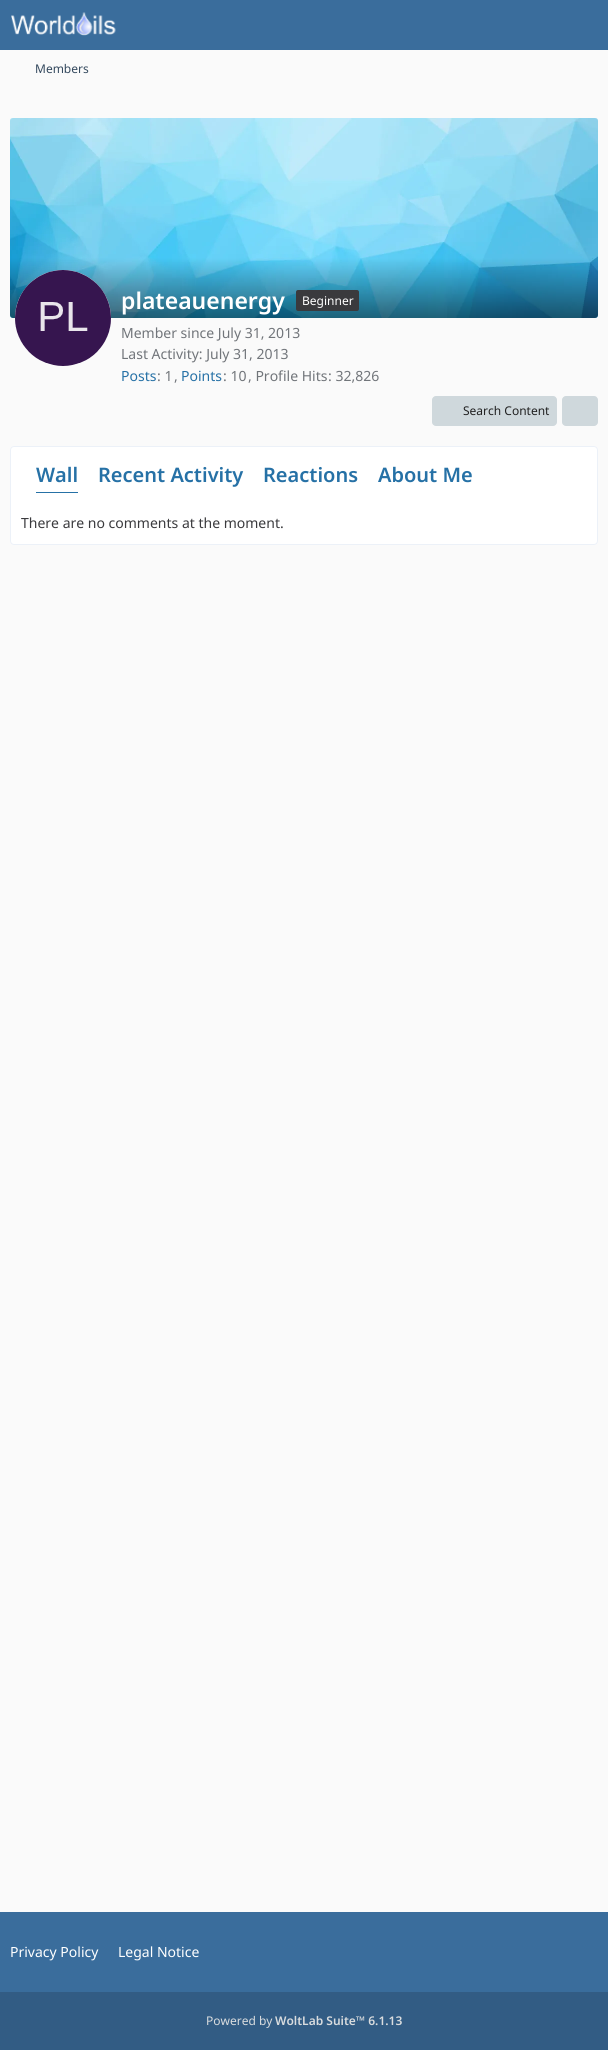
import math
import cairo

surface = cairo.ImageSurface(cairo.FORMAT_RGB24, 608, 2050)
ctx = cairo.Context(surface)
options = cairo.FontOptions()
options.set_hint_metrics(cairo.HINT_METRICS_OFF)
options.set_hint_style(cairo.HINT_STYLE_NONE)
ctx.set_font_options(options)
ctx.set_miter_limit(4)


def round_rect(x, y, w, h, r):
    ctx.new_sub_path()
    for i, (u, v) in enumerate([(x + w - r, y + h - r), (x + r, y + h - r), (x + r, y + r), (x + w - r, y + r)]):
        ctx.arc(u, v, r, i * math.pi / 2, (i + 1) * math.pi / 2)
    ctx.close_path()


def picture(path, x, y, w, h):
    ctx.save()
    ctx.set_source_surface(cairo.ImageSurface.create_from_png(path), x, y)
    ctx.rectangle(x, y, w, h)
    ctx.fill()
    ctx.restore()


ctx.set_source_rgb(0.98, 0.98, 0.98)
ctx.paint()
ctx.set_source_rgb(0.227, 0.427, 0.612)
ctx.rectangle(0, 0, 608, 50)
ctx.fill()
picture("img1.png", 11, 12, 105, 24)
ctx.select_font_face("Noto Sans")
ctx.set_font_size(12)
ctx.set_source_rgb(0.204, 0.286, 0.369)
ctx.move_to(35, 73)
ctx.show_text("Members")
picture("img2.png", 10, 118, 588, 200)
gradient = cairo.LinearGradient(304, 118, 304, 318)
gradient.add_color_stop_rgba(0.7, 0, 0, 0, 0)
gradient.add_color_stop_rgba(1, 0, 0, 0, 0.5)
ctx.set_source(gradient)
ctx.new_path()
ctx.move_to(10, 118)
ctx.line_to(598, 118)
ctx.line_to(598, 315)
ctx.curve_to(598, 316.5, 596.5, 318, 595, 318)
ctx.line_to(13, 318)
ctx.curve_to(11.5, 318, 10, 316.5, 10, 315)
ctx.close_path()
ctx.fill()
ctx.set_source_rgb(1, 1, 1)
ctx.arc(63, 318, 48, 0, 2 * math.pi)
ctx.fill()
picture("img3.png", 15, 270, 96, 96)
ctx.select_font_face("Noto Sans SemiBold")
ctx.set_font_size(23)
ctx.move_to(121, 309)
ctx.show_text("plateauenergy")
ctx.set_source_rgb(0.227, 0.227, 0.239)
round_rect(296, 290, 63, 21, 2)
ctx.fill()
ctx.select_font_face("Noto Sans")
ctx.set_font_size(12)
ctx.set_source_rgb(1, 1, 1)
ctx.move_to(302, 305)
ctx.show_text("Beginner")
ctx.set_font_size(14)
ctx.set_source_rgb(0.443, 0.459, 0.478)
ctx.move_to(121, 338)
ctx.show_text("Member since July 31, 2013")
ctx.move_to(121, 359)
ctx.show_text("Last Activity: July 31, 2013")
ctx.set_source_rgb(0.149, 0.443, 0.651)
ctx.move_to(121, 381)
ctx.show_text("Posts")
ctx.set_source_rgb(0.443, 0.459, 0.478)
ctx.move_to(157, 381)
ctx.show_text(": 1")
ctx.move_to(174, 381)
ctx.show_text(",")
ctx.set_source_rgb(0.149, 0.443, 0.651)
ctx.move_to(181, 381)
ctx.show_text("Points")
ctx.set_source_rgb(0.443, 0.459, 0.478)
ctx.move_to(223, 381)
ctx.show_text(": 10")
ctx.move_to(248, 381)
ctx.show_text(", Profile Hits")
ctx.move_to(328, 381)
ctx.show_text(": 32,826")
ctx.set_source_rgb(0.812, 0.847, 0.863)
round_rect(432, 396, 125, 30, 4)
ctx.fill()
ctx.set_font_size(12)
ctx.set_source_rgb(0.129, 0.129, 0.129)
ctx.move_to(463, 415)
ctx.show_text("Search Content")
ctx.set_source_rgb(0.812, 0.847, 0.863)
round_rect(562, 396, 36, 30, 4)
ctx.fill()
ctx.set_source_rgb(1, 1, 1)
round_rect(10.5, 446.5, 587, 98, 3.5)
ctx.fill_preserve()
ctx.set_source_rgb(0.925, 0.945, 0.969)
ctx.set_line_width(1)
ctx.stroke()
ctx.select_font_face("Noto Sans SemiBold")
ctx.set_font_size(20)
ctx.set_source_rgb(0.149, 0.443, 0.651)
ctx.move_to(36, 482)
ctx.show_text("Wall")
ctx.rectangle(36, 492, 42, 1)
ctx.fill()
ctx.move_to(98, 482)
ctx.show_text("Recent Activity")
ctx.move_to(263, 482)
ctx.show_text("Reactions")
ctx.move_to(378, 482)
ctx.show_text("About Me")
ctx.select_font_face("Noto Sans")
ctx.set_font_size(14)
ctx.set_source_rgb(0.227, 0.227, 0.239)
ctx.move_to(21, 528)
ctx.show_text("There are no comments at the moment.")
ctx.set_source_rgb(0.227, 0.427, 0.612)
ctx.rectangle(0, 1912, 608, 80)
ctx.fill()
ctx.set_source_rgb(1, 1, 1)
ctx.move_to(10, 1957)
ctx.show_text("Privacy Policy")
ctx.move_to(118, 1957)
ctx.show_text("Legal Notice")
ctx.set_source_rgb(0.196, 0.361, 0.518)
ctx.rectangle(0, 1992, 608, 58)
ctx.fill()
ctx.set_font_size(12)
ctx.set_source_rgb(0.851, 0.863, 0.871)
ctx.move_to(206, 2025)
ctx.show_text("Powered by")
ctx.select_font_face("Noto Sans SemiBold")
ctx.move_to(275, 2025)
ctx.show_text("WoltLab Suite™ 6.1.13")
surface.write_to_png("page.png")
